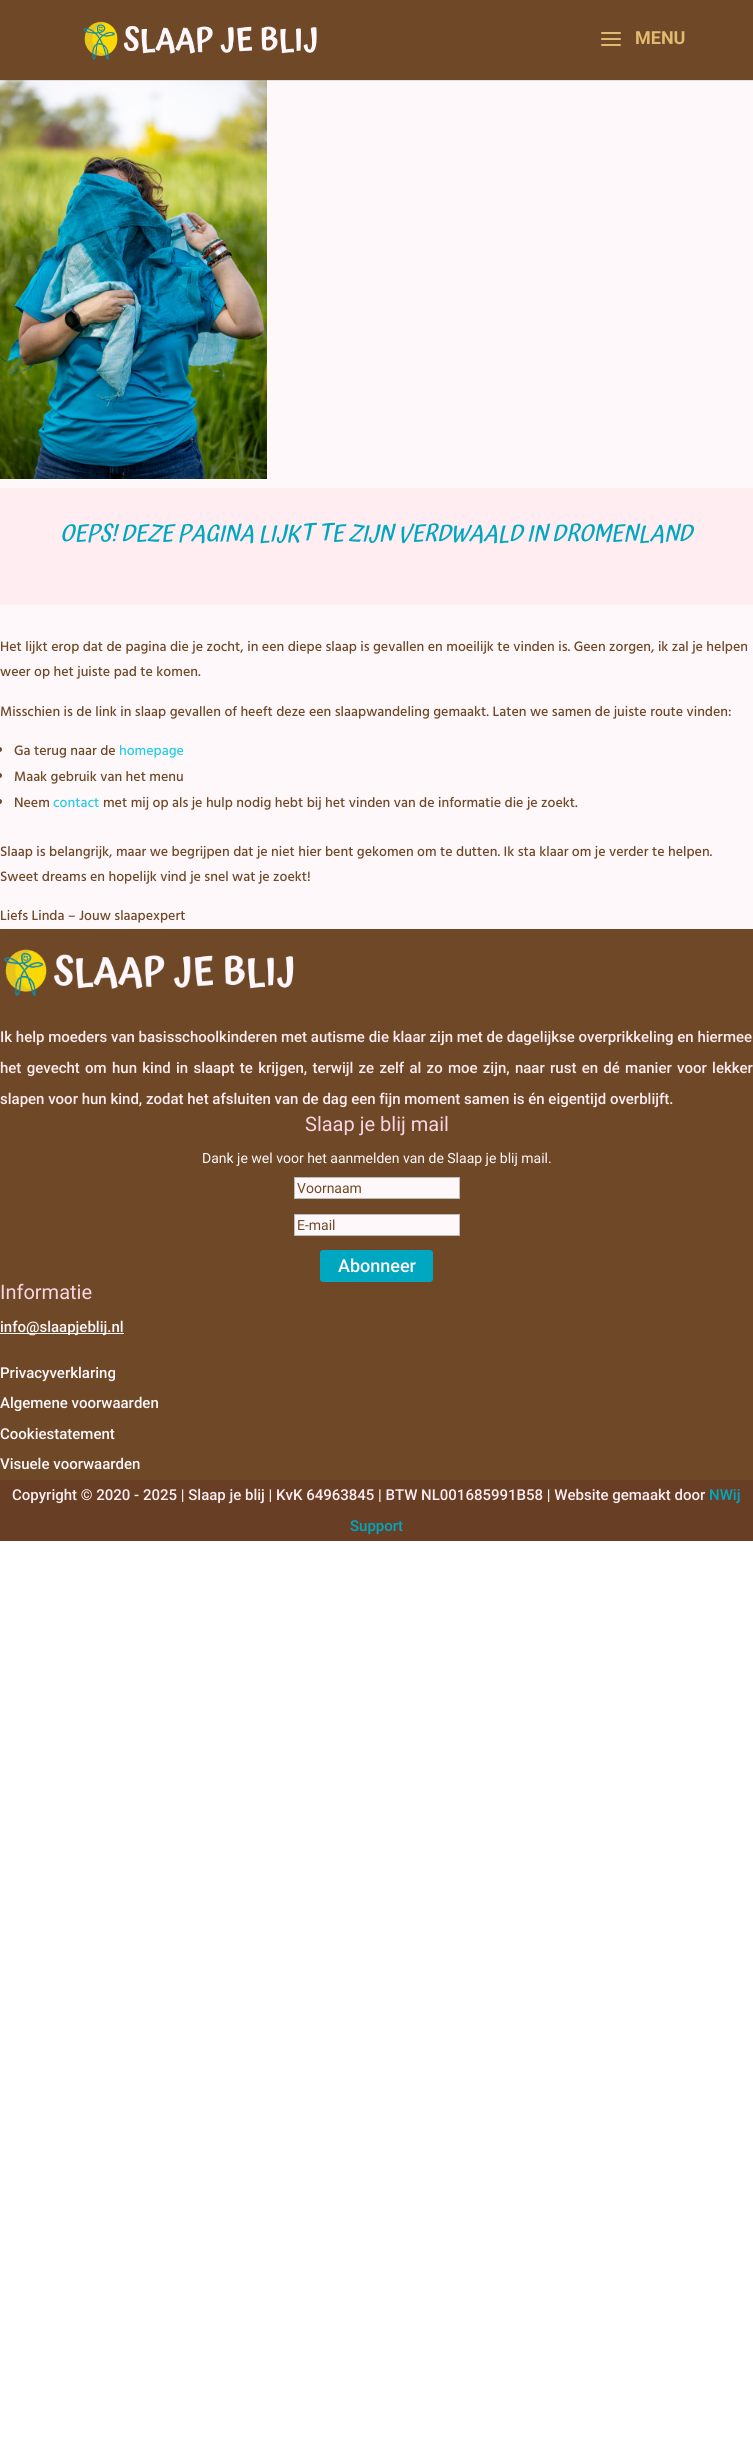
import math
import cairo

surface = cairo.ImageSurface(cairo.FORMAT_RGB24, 753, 2463)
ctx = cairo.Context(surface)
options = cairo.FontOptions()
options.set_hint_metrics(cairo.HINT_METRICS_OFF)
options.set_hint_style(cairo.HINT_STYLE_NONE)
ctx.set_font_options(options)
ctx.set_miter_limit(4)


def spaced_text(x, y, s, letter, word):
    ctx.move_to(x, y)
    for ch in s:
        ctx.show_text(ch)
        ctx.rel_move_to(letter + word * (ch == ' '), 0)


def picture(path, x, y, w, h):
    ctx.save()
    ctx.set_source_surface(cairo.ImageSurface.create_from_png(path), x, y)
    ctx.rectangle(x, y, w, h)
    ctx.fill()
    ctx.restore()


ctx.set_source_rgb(1, 1, 1)
ctx.paint()
ctx.set_source_rgb(1, 0.969, 0.984)
ctx.rectangle(0, 80, 753, 849)
ctx.fill()
picture("img3.png", 0, 80, 267, 399)
ctx.set_source_rgba(0, 0, 0, 0.1)
ctx.rectangle(0, 80, 753, 1)
ctx.fill()
ctx.set_source_rgb(0.435, 0.282, 0.153)
ctx.rectangle(0, 0, 753, 80)
ctx.fill()
picture("img1.png", 83, 21, 234, 39)
picture("img2.png", 601, 32, 20, 14)
ctx.select_font_face("Roboto", cairo.FONT_SLANT_NORMAL, cairo.FONT_WEIGHT_BOLD)
ctx.set_font_size(18)
ctx.set_source_rgb(0.882, 0.725, 0.439)
ctx.move_to(635, 44)
ctx.show_text("MENU")
ctx.set_source_rgb(1, 0.929, 0.949)
ctx.rectangle(0, 488, 753, 117)
ctx.fill()
ctx.select_font_face("Atma Medium", cairo.FONT_SLANT_ITALIC)
ctx.set_font_size(23)
ctx.set_source_rgb(0, 0.655, 0.757)
ctx.move_to(60, 541)
ctx.show_text("OEPS! DEZE PAGINA LIJKT TE ZIJN VERDWAALD IN DROMENLAND")
ctx.select_font_face("Hind Medium")
ctx.set_font_size(14)
ctx.set_source_rgb(0.435, 0.282, 0.153)
ctx.move_to(0, 651)
ctx.show_text("Het lijkt erop dat de pagina die je zocht, in een diepe slaap is gevallen en moeilijk te vinden is. Geen zorgen, ik zal je helpen")
ctx.move_to(0, 676)
ctx.show_text("weer op het juiste pad te komen.")
ctx.move_to(0, 716)
ctx.show_text("Misschien is de link in slaap gevallen of heeft deze een slaapwandeling gemaakt. Laten we samen de juiste route vinden:")
ctx.new_path()
ctx.arc(-0.5, 749.5, 2.5, 0, 2 * math.pi)
ctx.fill()
ctx.move_to(14, 755)
ctx.show_text("Ga terug naar de")
ctx.set_source_rgb(0.137, 0.804, 0.906)
ctx.move_to(119, 755)
ctx.show_text("homepage")
ctx.set_source_rgb(0.435, 0.282, 0.153)
ctx.new_path()
ctx.arc(-0.5, 775.5, 2.5, 0, 2 * math.pi)
ctx.fill()
ctx.move_to(14, 781)
ctx.show_text("Maak gebruik van het menu")
ctx.new_path()
ctx.arc(-0.5, 801.5, 2.5, 0, 2 * math.pi)
ctx.fill()
ctx.move_to(14, 807)
ctx.show_text("Neem")
ctx.set_source_rgb(0.137, 0.804, 0.906)
ctx.move_to(53, 807)
ctx.show_text("contact")
ctx.set_source_rgb(0.435, 0.282, 0.153)
ctx.move_to(103, 807)
ctx.show_text("met mij op als je hulp nodig hebt bij het vinden van de informatie die je zoekt.")
ctx.move_to(0, 856)
ctx.show_text("Slaap is belangrijk, maar we begrijpen dat je niet hier bent gekomen om te dutten. Ik sta klaar om je verder te helpen.")
ctx.move_to(0, 881)
ctx.show_text("Sweet dreams en hopelijk vind je snel wat je zoekt!")
ctx.move_to(0, 920)
ctx.show_text("Liefs Linda – Jouw slaapexpert")
ctx.rectangle(0, 929, 753, 551)
ctx.fill()
picture("img4.png", 4, 949, 290, 48)
ctx.select_font_face("Roboto Medium")
ctx.set_font_size(15)
ctx.set_source_rgb(1, 0.929, 0.949)
ctx.move_to(0, 1042)
ctx.show_text("Ik help moeders van basisschoolkinderen met autisme die klaar zijn met de dagelijkse overprikkeling en hiermee")
spaced_text(0, 1073, "het gevecht om hun kind in slaapt te krijgen, terwijl ze zelf al zo moe zijn, naar rust en dé manier voor lekker", 0, 1.55)
ctx.move_to(0, 1104)
ctx.show_text("slapen voor hun kind, zodat het afsluiten van de dag een fijn moment samen is én eigentijd overblijft.")
ctx.select_font_face("Roboto")
ctx.set_font_size(20)
ctx.set_source_rgb(0.976, 0.835, 0.894)
ctx.move_to(305, 1131)
ctx.show_text("Slaap je blij mail")
ctx.set_font_size(14)
ctx.set_source_rgb(1, 0.969, 0.984)
ctx.move_to(202, 1163)
ctx.show_text("Dank je wel voor het aanmelden van de Slaap je blij mail.")
ctx.rectangle(294.5, 1177.5, 165, 21)
ctx.fill_preserve()
ctx.set_source_rgb(0.733, 0.733, 0.733)
ctx.set_line_width(1)
ctx.stroke()
ctx.set_source_rgb(0.435, 0.282, 0.153)
ctx.move_to(297, 1193)
ctx.show_text("Voornaam")
ctx.set_source_rgb(1, 0.969, 0.984)
ctx.rectangle(294.5, 1214.5, 165, 21)
ctx.fill_preserve()
ctx.set_source_rgb(0.733, 0.733, 0.733)
ctx.stroke()
ctx.set_source_rgb(0.435, 0.282, 0.153)
ctx.move_to(297, 1230)
ctx.show_text("E-mail")
ctx.set_source_rgb(0, 0.655, 0.757)
ctx.new_path()
ctx.move_to(323, 1250)
ctx.line_to(338, 1250)
ctx.line_to(338, 1282)
ctx.line_to(323, 1282)
ctx.curve_to(321.5, 1282, 320, 1280.5, 320, 1279)
ctx.line_to(320, 1253)
ctx.curve_to(320, 1251.5, 321.5, 1250, 323, 1250)
ctx.close_path()
ctx.fill()
ctx.new_path()
ctx.move_to(338, 1250)
ctx.line_to(430, 1250)
ctx.curve_to(431.5, 1250, 433, 1251.5, 433, 1253)
ctx.line_to(433, 1279)
ctx.curve_to(433, 1280.5, 431.5, 1282, 430, 1282)
ctx.line_to(338, 1282)
ctx.close_path()
ctx.fill()
ctx.select_font_face("Roboto Medium")
ctx.set_font_size(18)
ctx.set_source_rgb(1, 0.969, 0.984)
ctx.move_to(338, 1272)
ctx.show_text("Abonneer")
ctx.select_font_face("Roboto")
ctx.set_font_size(20)
ctx.set_source_rgb(0.976, 0.835, 0.894)
ctx.move_to(0, 1299)
ctx.show_text("Informatie")
ctx.set_source_rgb(1, 0.969, 0.984)
ctx.rectangle(0, 1333, 124, 1)
ctx.fill()
ctx.select_font_face("Roboto Medium")
ctx.set_font_size(15)
ctx.move_to(0, 1332)
ctx.show_text("info@slaapjeblij.nl")
ctx.move_to(0, 1378)
ctx.show_text("Privacyverklaring")
ctx.move_to(0, 1408)
ctx.show_text("Algemene voorwaarden")
ctx.move_to(0, 1439)
ctx.show_text("Cookiestatement")
ctx.move_to(0, 1469)
ctx.show_text("Visuele voorwaarden")
ctx.set_source_rgb(0.408, 0.243, 0.141)
ctx.rectangle(0, 1480, 753, 61)
ctx.fill()
ctx.set_source_rgb(1, 0.929, 0.949)
ctx.move_to(12, 1500)
ctx.show_text("Copyright © 2020 - 2025 | Slaap je blij | KvK 64963845 | BTW NL001685991B58 | Website gemaakt door")
ctx.set_source_rgb(0, 0.655, 0.757)
ctx.move_to(709, 1500)
ctx.show_text("NWij")
ctx.move_to(350, 1531)
ctx.show_text("Support")
surface.write_to_png("page.png")
